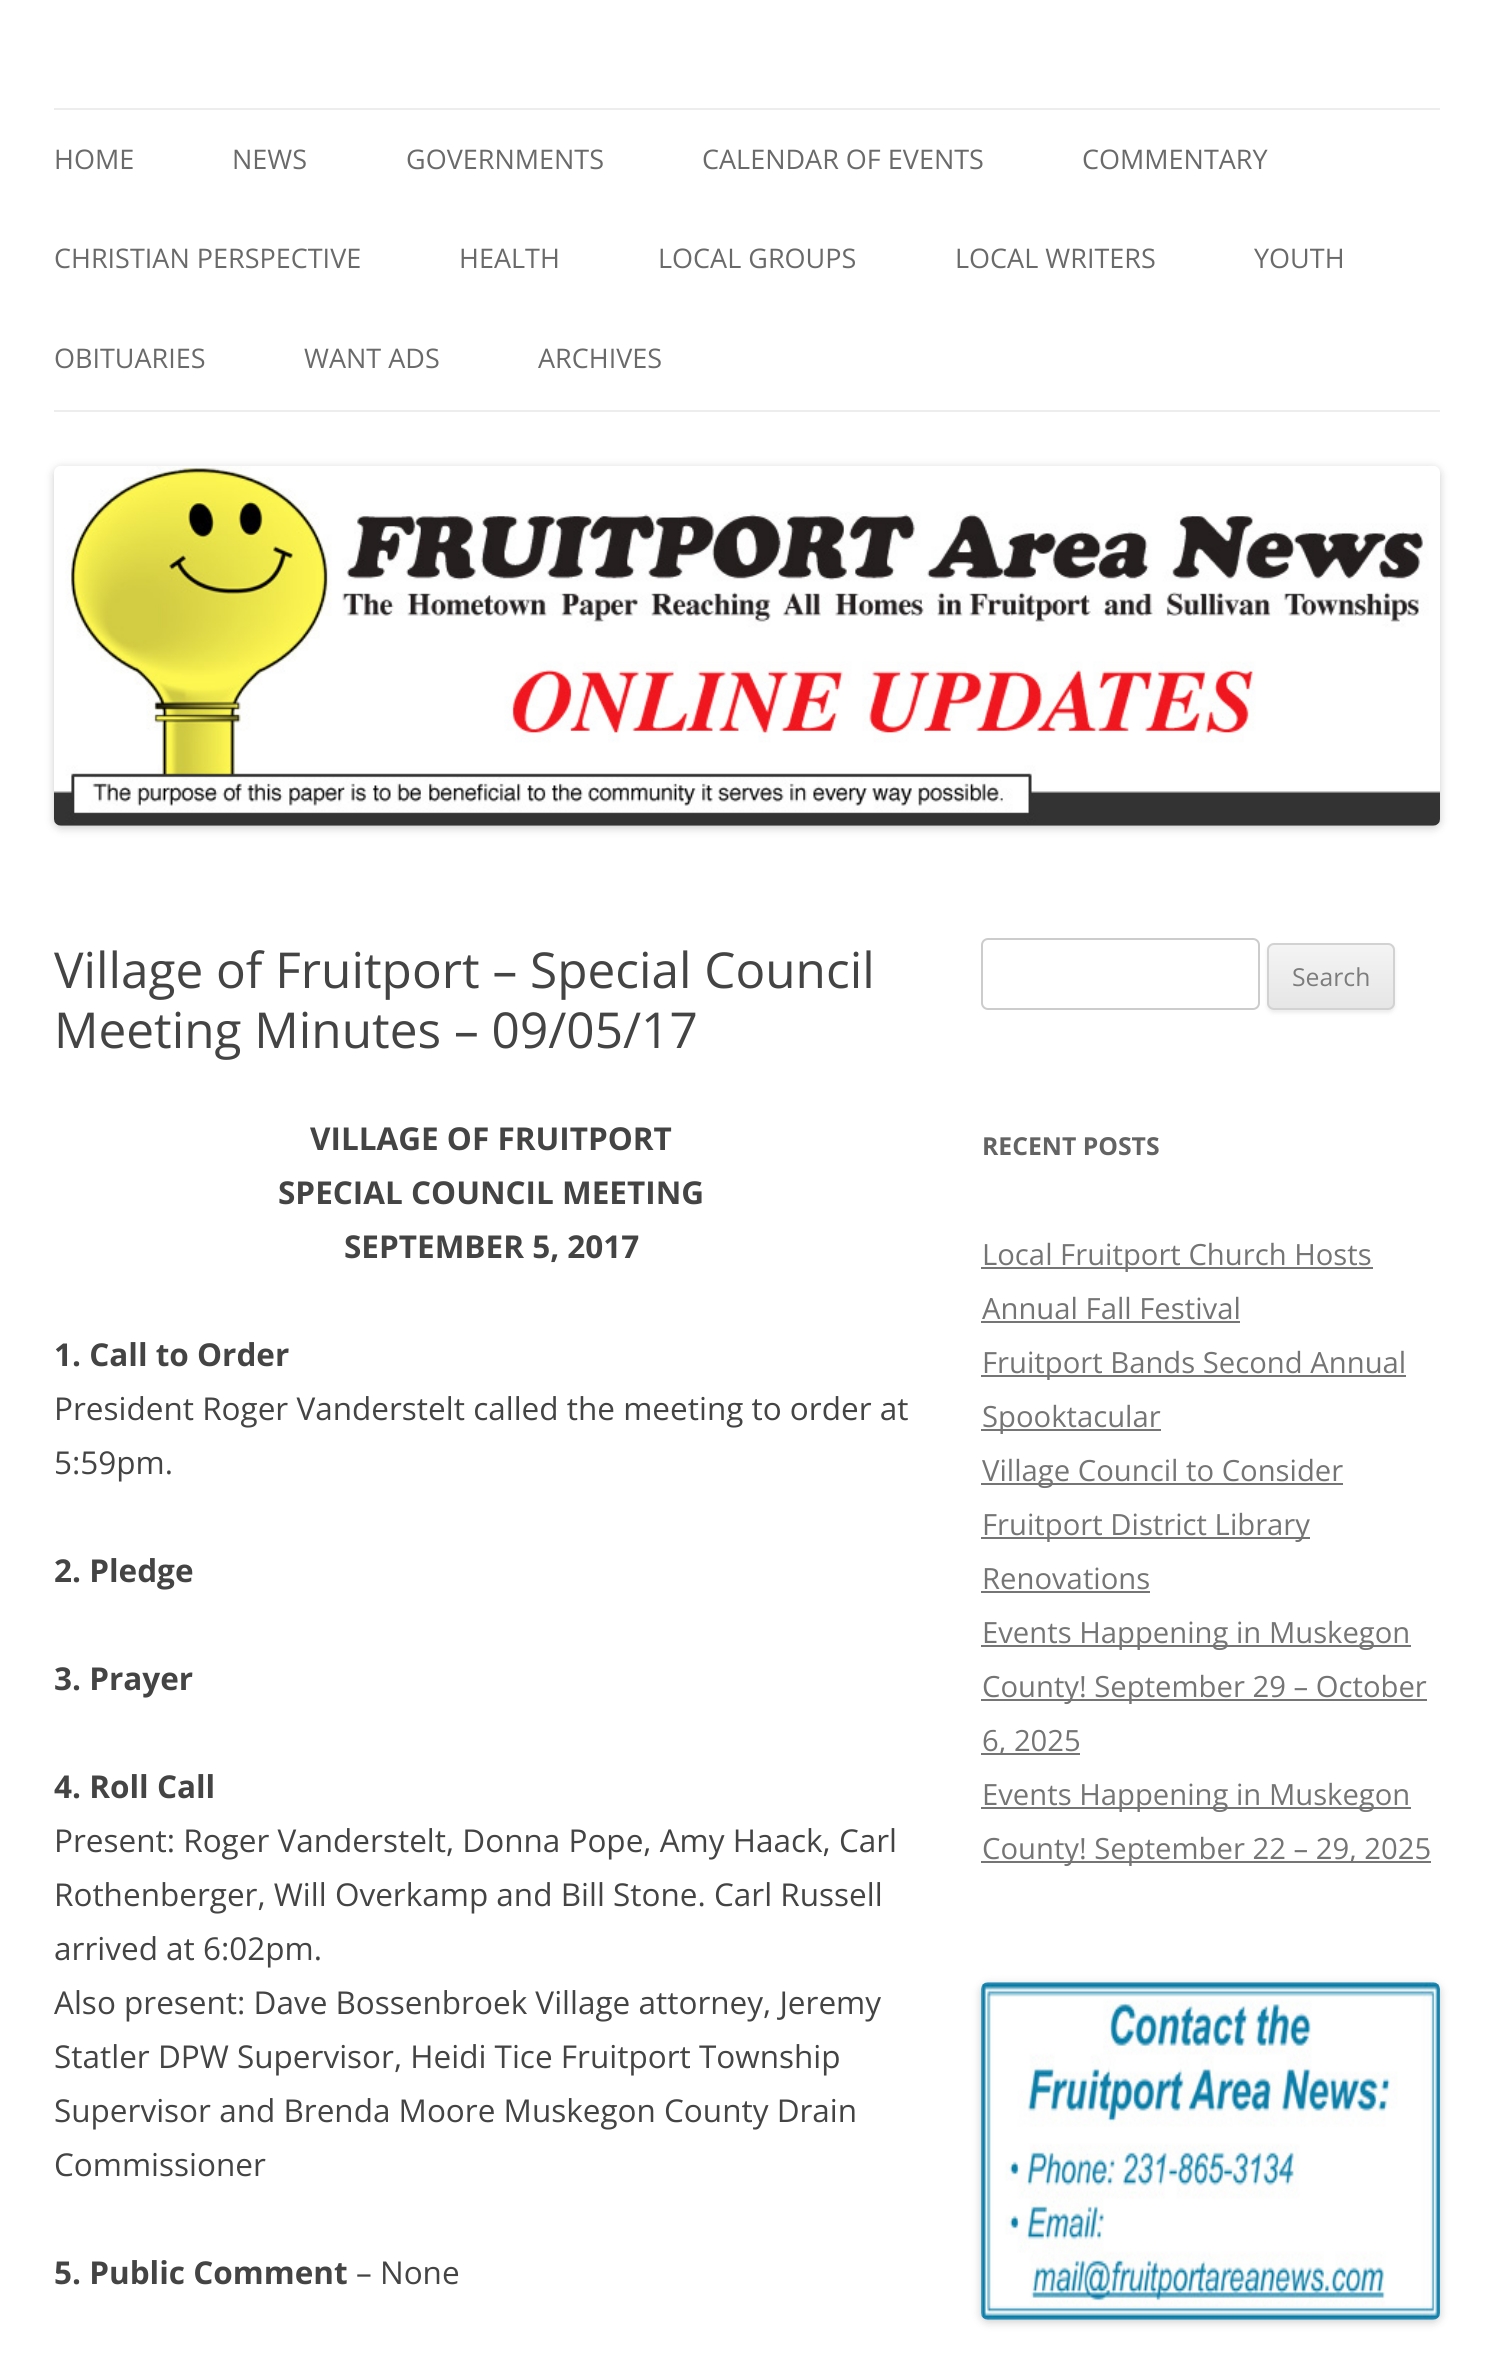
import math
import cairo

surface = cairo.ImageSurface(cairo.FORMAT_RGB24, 1494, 2353)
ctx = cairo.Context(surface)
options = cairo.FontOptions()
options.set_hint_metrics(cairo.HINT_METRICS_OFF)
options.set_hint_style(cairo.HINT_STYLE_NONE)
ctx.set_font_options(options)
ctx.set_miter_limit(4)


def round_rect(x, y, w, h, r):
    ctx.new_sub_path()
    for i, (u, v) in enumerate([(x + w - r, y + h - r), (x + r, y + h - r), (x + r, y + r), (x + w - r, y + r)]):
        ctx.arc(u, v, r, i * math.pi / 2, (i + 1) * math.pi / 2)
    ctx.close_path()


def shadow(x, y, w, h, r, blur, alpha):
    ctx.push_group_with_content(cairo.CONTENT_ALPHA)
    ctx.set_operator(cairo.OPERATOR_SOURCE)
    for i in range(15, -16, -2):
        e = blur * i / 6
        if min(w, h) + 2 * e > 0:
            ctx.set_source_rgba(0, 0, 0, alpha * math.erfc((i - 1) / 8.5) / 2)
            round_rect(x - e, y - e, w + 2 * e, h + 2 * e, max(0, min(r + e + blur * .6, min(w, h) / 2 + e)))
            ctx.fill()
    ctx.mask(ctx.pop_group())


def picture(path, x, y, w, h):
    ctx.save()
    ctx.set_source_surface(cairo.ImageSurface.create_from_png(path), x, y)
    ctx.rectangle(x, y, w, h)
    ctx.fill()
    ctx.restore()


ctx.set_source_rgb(1, 1, 1)
ctx.paint()
ctx.set_source_rgb(0.929, 0.929, 0.929)
ctx.rectangle(54, 108, 1386, 2)
ctx.fill()
ctx.rectangle(54, 410, 1386, 2)
ctx.fill()
ctx.select_font_face("Open Sans")
ctx.set_font_size(27)
ctx.set_source_rgb(0.416, 0.416, 0.416)
ctx.move_to(54, 169)
ctx.show_text("HOME")
ctx.move_to(232, 169)
ctx.show_text("NEWS")
ctx.move_to(406, 169)
ctx.show_text("GOVERNMENTS")
ctx.move_to(702, 169)
ctx.show_text("CALENDAR OF EVENTS")
ctx.move_to(1082, 169)
ctx.show_text("COMMENTARY")
ctx.move_to(54, 268)
ctx.show_text("CHRISTIAN PERSPECTIVE")
ctx.move_to(459, 268)
ctx.show_text("HEALTH")
ctx.move_to(658, 268)
ctx.show_text("LOCAL GROUPS")
ctx.move_to(955, 268)
ctx.show_text("LOCAL WRITERS")
ctx.move_to(1254, 268)
ctx.show_text("YOUTH")
ctx.move_to(54, 368)
ctx.show_text("OBITUARIES")
ctx.move_to(304, 368)
ctx.show_text("WANT ADS")
ctx.move_to(538, 368)
ctx.show_text("ARCHIVES")
ctx.set_source_rgb(0, 0, 0)
shadow(54, 468, 1386, 360, 7, 4.5, 0.2)
picture("img1.png", 54, 466, 1386, 360)
ctx.set_font_size(49.5)
ctx.set_source_rgb(0.267, 0.267, 0.267)
ctx.move_to(54, 988)
ctx.show_text("Village of Fruitport – Special Council")
ctx.move_to(54, 1048)
ctx.show_text("Meeting Minutes – 09/05/17")
ctx.select_font_face("Open Sans", cairo.FONT_SLANT_NORMAL, cairo.FONT_WEIGHT_BOLD)
ctx.set_font_size(31.5)
ctx.move_to(310, 1150)
ctx.show_text("VILLAGE OF FRUITPORT")
ctx.move_to(278, 1204)
ctx.show_text("SPECIAL COUNCIL MEETING")
ctx.move_to(344, 1258)
ctx.show_text("SEPTEMBER 5, 2017")
ctx.move_to(54, 1366)
ctx.show_text("1. Call to Order")
ctx.select_font_face("Open Sans")
ctx.move_to(54, 1420)
ctx.show_text("President Roger Vanderstelt called the meeting to order at")
ctx.move_to(54, 1474)
ctx.show_text("5:59pm.")
ctx.select_font_face("Open Sans", cairo.FONT_SLANT_NORMAL, cairo.FONT_WEIGHT_BOLD)
ctx.move_to(54, 1582)
ctx.show_text("2. Pledge")
ctx.move_to(54, 1690)
ctx.show_text("3. Prayer")
ctx.move_to(54, 1798)
ctx.show_text("4. Roll Call")
ctx.select_font_face("Open Sans")
ctx.move_to(54, 1852)
ctx.show_text("Present: Roger Vanderstelt, Donna Pope, Amy Haack, Carl")
ctx.move_to(54, 1906)
ctx.show_text("Rothenberger, Will Overkamp and Bill Stone. Carl Russell")
ctx.move_to(54, 1960)
ctx.show_text("arrived at 6:02pm.")
ctx.move_to(54, 2014)
ctx.show_text("Also present: Dave Bossenbroek Village attorney, Jeremy")
ctx.move_to(54, 2068)
ctx.show_text("Statler DPW Supervisor, Heidi Tice Fruitport Township")
ctx.move_to(54, 2122)
ctx.show_text("Supervisor and Brenda Moore Muskegon County Drain")
ctx.move_to(54, 2176)
ctx.show_text("Commissioner")
ctx.select_font_face("Open Sans", cairo.FONT_SLANT_NORMAL, cairo.FONT_WEIGHT_BOLD)
ctx.move_to(54, 2284)
ctx.show_text("5. Public Comment")
ctx.select_font_face("Open Sans")
ctx.move_to(356, 2284)
ctx.show_text("– None")
round_rect(982, 939, 277, 70, 6)
ctx.set_source_rgb(0.8, 0.8, 0.8)
ctx.stroke()
ctx.set_source_rgb(0.251, 0.251, 0.251)
shadow(1267, 945, 128, 68, 7, 2, 0.1)
ctx.save()
round_rect(1267, 943, 128, 67, 7)
ctx.clip()
gradient = cairo.LinearGradient(1331, 945, 1331, 1008)
gradient.add_color_stop_rgba(0, 0.957, 0.957, 0.957, 1)
gradient.add_color_stop_rgba(1, 0.902, 0.902, 0.902, 1)
ctx.set_source(gradient)
ctx.rectangle(1267, 945, 128, 63)
ctx.fill()
ctx.restore()
round_rect(1268, 944, 126, 65, 6)
ctx.set_source_rgb(0.824, 0.824, 0.824)
ctx.stroke()
ctx.set_font_size(24.75)
ctx.set_source_rgb(0.486, 0.486, 0.486)
ctx.move_to(1292, 986)
ctx.show_text("Search")
ctx.select_font_face("Open Sans", cairo.FONT_SLANT_NORMAL, cairo.FONT_WEIGHT_BOLD)
ctx.set_source_rgb(0.388, 0.388, 0.388)
ctx.move_to(982, 1155)
ctx.show_text("RECENT POSTS")
ctx.set_source_rgb(0.459, 0.459, 0.459)
ctx.rectangle(981, 1267, 392, 2)
ctx.fill()
ctx.select_font_face("Open Sans")
ctx.set_font_size(29.25)
ctx.move_to(982, 1265)
ctx.show_text("Local Fruitport Church Hosts")
ctx.move_to(982, 1319)
ctx.show_text("Annual Fall Festival")
ctx.rectangle(981, 1321, 259, 2)
ctx.fill()
ctx.rectangle(981, 1375, 425, 2)
ctx.fill()
ctx.move_to(982, 1373)
ctx.show_text("Fruitport Bands Second Annual")
ctx.rectangle(981, 1429, 180, 2)
ctx.fill()
ctx.move_to(982, 1427)
ctx.show_text("Spooktacular")
ctx.rectangle(981, 1483, 362, 2)
ctx.fill()
ctx.move_to(982, 1481)
ctx.show_text("Village Council to Consider")
ctx.rectangle(981, 1537, 329, 2)
ctx.fill()
ctx.move_to(982, 1535)
ctx.show_text("Fruitport District Library")
ctx.move_to(982, 1589)
ctx.show_text("Renovations")
ctx.rectangle(981, 1591, 169, 2)
ctx.fill()
ctx.rectangle(981, 1645, 430, 2)
ctx.fill()
ctx.move_to(982, 1643)
ctx.show_text("Events Happening in Muskegon")
ctx.rectangle(981, 1699, 446, 2)
ctx.fill()
ctx.move_to(982, 1697)
ctx.show_text("County! September 29 – October")
ctx.rectangle(981, 1753, 99, 2)
ctx.fill()
ctx.move_to(982, 1751)
ctx.show_text("6, 2025")
ctx.rectangle(981, 1807, 430, 2)
ctx.fill()
ctx.move_to(982, 1805)
ctx.show_text("Events Happening in Muskegon")
ctx.rectangle(981, 1861, 450, 2)
ctx.fill()
ctx.move_to(982, 1859)
ctx.show_text("County! September 22 – 29, 2025")
ctx.set_source_rgb(0, 0, 0)
shadow(981, 1985, 459, 337, 7, 4.5, 0.2)
picture("img2.png", 981, 1982, 459, 338)
surface.write_to_png("page.png")
